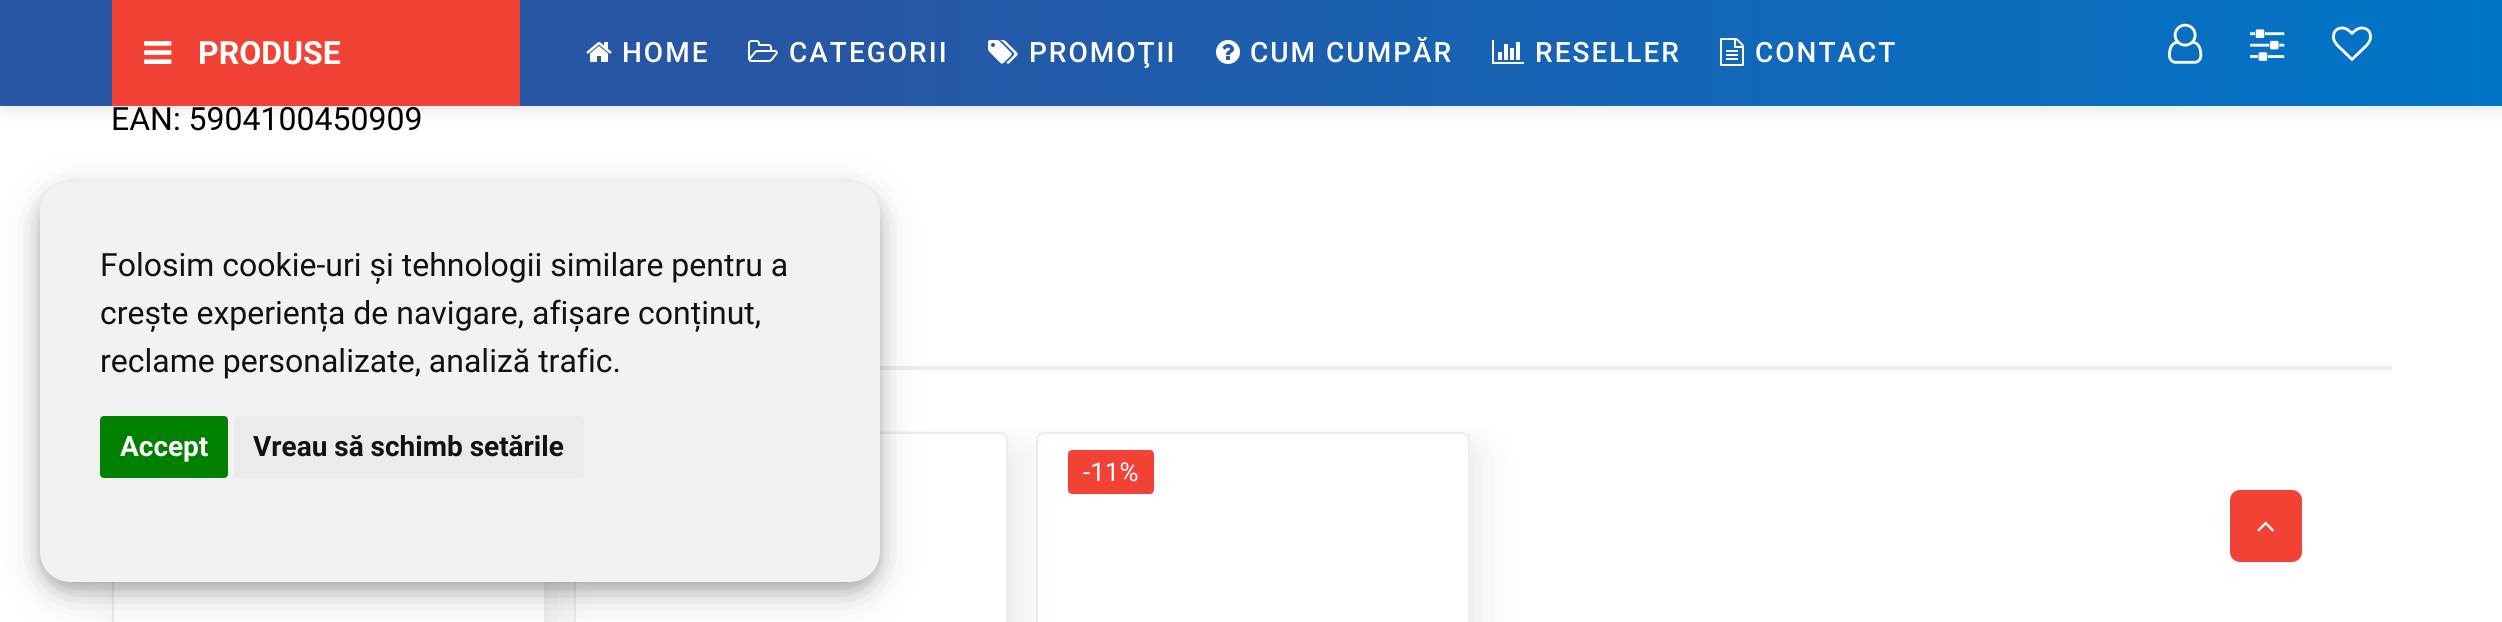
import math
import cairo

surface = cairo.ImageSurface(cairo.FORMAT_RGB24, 2502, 622)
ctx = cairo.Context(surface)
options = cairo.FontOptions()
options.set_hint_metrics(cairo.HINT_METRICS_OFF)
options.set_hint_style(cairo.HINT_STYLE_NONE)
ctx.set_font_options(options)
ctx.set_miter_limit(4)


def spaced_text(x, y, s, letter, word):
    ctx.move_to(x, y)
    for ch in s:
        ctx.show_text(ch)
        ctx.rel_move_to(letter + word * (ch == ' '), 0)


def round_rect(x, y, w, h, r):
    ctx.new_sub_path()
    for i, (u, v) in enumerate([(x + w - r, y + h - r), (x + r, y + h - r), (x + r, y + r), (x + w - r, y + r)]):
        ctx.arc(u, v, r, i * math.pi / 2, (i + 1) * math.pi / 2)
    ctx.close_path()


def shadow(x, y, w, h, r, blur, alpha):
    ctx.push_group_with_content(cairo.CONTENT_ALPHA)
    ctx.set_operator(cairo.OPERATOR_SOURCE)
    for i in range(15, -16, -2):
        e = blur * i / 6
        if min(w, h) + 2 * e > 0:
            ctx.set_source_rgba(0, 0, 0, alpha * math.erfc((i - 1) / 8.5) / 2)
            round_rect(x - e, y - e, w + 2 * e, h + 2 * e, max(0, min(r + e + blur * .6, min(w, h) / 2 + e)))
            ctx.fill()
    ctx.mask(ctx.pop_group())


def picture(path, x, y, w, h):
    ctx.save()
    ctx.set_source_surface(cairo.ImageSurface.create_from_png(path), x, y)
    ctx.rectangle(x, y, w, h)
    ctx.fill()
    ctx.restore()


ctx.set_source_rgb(1, 1, 1)
ctx.paint()
ctx.set_source_rgb(0, 0, 0)
shadow(4, 4, 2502, 106, 0, 7, 0.1)
gradient = cairo.LinearGradient(0, 53, 2502, 53)
gradient.add_color_stop_rgba(0.33, 0.153, 0.337, 0.643, 1)
gradient.add_color_stop_rgba(1, 0, 0.459, 0.78, 1)
ctx.set_source(gradient)
ctx.rectangle(0, 0, 2502, 106)
ctx.fill()
ctx.set_source_rgb(0.949, 0.259, 0.212)
ctx.rectangle(112, 0, 408, 106)
ctx.fill()
picture("img1.png", 144, 41, 28, 23)
ctx.select_font_face("Roboto", cairo.FONT_SLANT_NORMAL, cairo.FONT_WEIGHT_BOLD)
ctx.set_font_size(32)
ctx.set_source_rgb(1, 1, 1)
ctx.move_to(198, 64)
ctx.show_text("PRODUSE")
picture("img2.png", 586, 42, 26, 20)
ctx.select_font_face("Roboto Medium")
ctx.set_font_size(28)
spaced_text(622, 62, "HOME", 2, 0)
picture("img3.png", 748, 40, 30, 22)
spaced_text(789, 62, "CATEGORII", 2, 0)
picture("img4.png", 988, 40, 30, 24)
spaced_text(1029, 62, "PROMOŢII", 2, 0)
picture("img5.png", 1216, 40, 24, 24)
spaced_text(1250, 62, "CUM CUMPĂR", 2, 0)
picture("img6.png", 1492, 40, 32, 24)
spaced_text(1535, 62, "RESELLER", 2, 0)
picture("img7.png", 1720, 38, 24, 28)
spaced_text(1755, 62, "CONTACT", 2, 0)
picture("img8.png", 2168, 23, 35, 41)
picture("img9.png", 2250, 29, 35, 32)
picture("img10.png", 2332, 26, 40, 35)
ctx.select_font_face("Roboto")
ctx.set_font_size(32)
ctx.set_source_rgb(0, 0, 0)
ctx.move_to(111, 130)
ctx.show_text("EAN: 5904100450909")
ctx.set_source_rgb(0.933, 0.933, 0.933)
ctx.rectangle(880, 366, 1512, 4)
ctx.fill()
ctx.save()
ctx.set_fill_rule(cairo.FILL_RULE_EVEN_ODD)
ctx.new_path()
ctx.move_to(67, 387)
ctx.line_to(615, 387)
ctx.line_to(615, 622)
ctx.line_to(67, 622)
ctx.close_path()
ctx.move_to(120, 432)
ctx.line_to(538, 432)
ctx.curve_to(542.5, 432, 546, 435.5, 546, 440)
ctx.line_to(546, 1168)
ctx.curve_to(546, 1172.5, 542.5, 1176, 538, 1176)
ctx.line_to(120, 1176)
ctx.curve_to(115.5, 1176, 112, 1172.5, 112, 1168)
ctx.line_to(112, 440)
ctx.curve_to(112, 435.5, 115.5, 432, 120, 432)
ctx.close_path()
ctx.clip()
ctx.set_source_rgb(0, 0, 0)
shadow(128, 448, 426, 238, 4, 20, 0.1)
ctx.restore()
ctx.rectangle(113, 433, 432, 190)
ctx.set_source_rgb(0.922, 0.922, 0.922)
ctx.stroke()
ctx.save()
round_rect(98, 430, 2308, 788, 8)
ctx.clip()
ctx.set_fill_rule(cairo.FILL_RULE_EVEN_ODD)
ctx.new_path()
ctx.move_to(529, 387)
ctx.line_to(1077, 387)
ctx.line_to(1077, 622)
ctx.line_to(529, 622)
ctx.close_path()
ctx.move_to(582, 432)
ctx.line_to(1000, 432)
ctx.curve_to(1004.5, 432, 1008, 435.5, 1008, 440)
ctx.line_to(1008, 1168)
ctx.curve_to(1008, 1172.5, 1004.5, 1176, 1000, 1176)
ctx.line_to(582, 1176)
ctx.curve_to(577.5, 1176, 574, 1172.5, 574, 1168)
ctx.line_to(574, 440)
ctx.curve_to(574, 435.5, 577.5, 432, 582, 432)
ctx.close_path()
ctx.clip()
ctx.set_source_rgb(0, 0, 0)
shadow(590, 448, 426, 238, 4, 20, 0.1)
ctx.restore()
round_rect(575, 433, 432, 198, 7)
ctx.stroke()
ctx.save()
round_rect(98, 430, 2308, 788, 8)
ctx.clip()
ctx.set_fill_rule(cairo.FILL_RULE_EVEN_ODD)
ctx.new_path()
ctx.move_to(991, 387)
ctx.line_to(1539, 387)
ctx.line_to(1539, 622)
ctx.line_to(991, 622)
ctx.close_path()
ctx.move_to(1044, 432)
ctx.line_to(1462, 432)
ctx.curve_to(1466.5, 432, 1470, 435.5, 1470, 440)
ctx.line_to(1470, 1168)
ctx.curve_to(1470, 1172.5, 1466.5, 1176, 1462, 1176)
ctx.line_to(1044, 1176)
ctx.curve_to(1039.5, 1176, 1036, 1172.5, 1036, 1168)
ctx.line_to(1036, 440)
ctx.curve_to(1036, 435.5, 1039.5, 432, 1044, 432)
ctx.close_path()
ctx.clip()
ctx.set_source_rgb(0, 0, 0)
shadow(1052, 448, 426, 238, 4, 20, 0.1)
ctx.restore()
round_rect(1037, 433, 432, 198, 7)
ctx.stroke()
ctx.set_source_rgb(0.949, 0.259, 0.212)
round_rect(1069, 451, 84, 42, 3)
ctx.fill_preserve()
ctx.stroke()
ctx.set_font_size(26)
ctx.set_source_rgb(1, 1, 1)
ctx.move_to(1083, 481)
ctx.show_text("-11%")
ctx.set_source_rgb(0, 0, 0)
shadow(40, 194, 840, 400, 30, 20, 0.19)
shadow(40, 190, 840, 400, 30, 8, 0.2)
ctx.set_source_rgb(0.949, 0.949, 0.949)
round_rect(40, 182, 840, 400, 30)
ctx.fill()
ctx.set_font_size(32)
ctx.set_source_rgb(0.067, 0.067, 0.067)
ctx.move_to(100, 276)
ctx.show_text("Folosim cookie-uri și tehnologii similare pentru a")
ctx.move_to(100, 324)
ctx.show_text("crește experiența de navigare, afișare conținut,")
ctx.move_to(100, 372)
ctx.show_text("reclame personalizate, analiză trafic.")
ctx.set_source_rgb(0, 0.502, 0)
round_rect(100, 416, 128, 62, 4)
ctx.fill()
ctx.select_font_face("Roboto", cairo.FONT_SLANT_NORMAL, cairo.FONT_WEIGHT_BOLD)
ctx.set_font_size(28)
ctx.set_source_rgb(1, 1, 1)
ctx.move_to(120, 456)
ctx.show_text("Accept")
ctx.set_source_rgb(0.918, 0.918, 0.918)
round_rect(234, 416, 350, 62, 4)
ctx.fill()
ctx.set_source_rgb(0.067, 0.067, 0.067)
ctx.move_to(253, 456)
ctx.show_text("Vreau să schimb setările")
ctx.set_source_rgb(0.949, 0.259, 0.212)
round_rect(2230, 490, 72, 72, 10)
ctx.fill()
picture("img11.png", 2257, 521, 17, 11)
surface.write_to_png("page.png")
